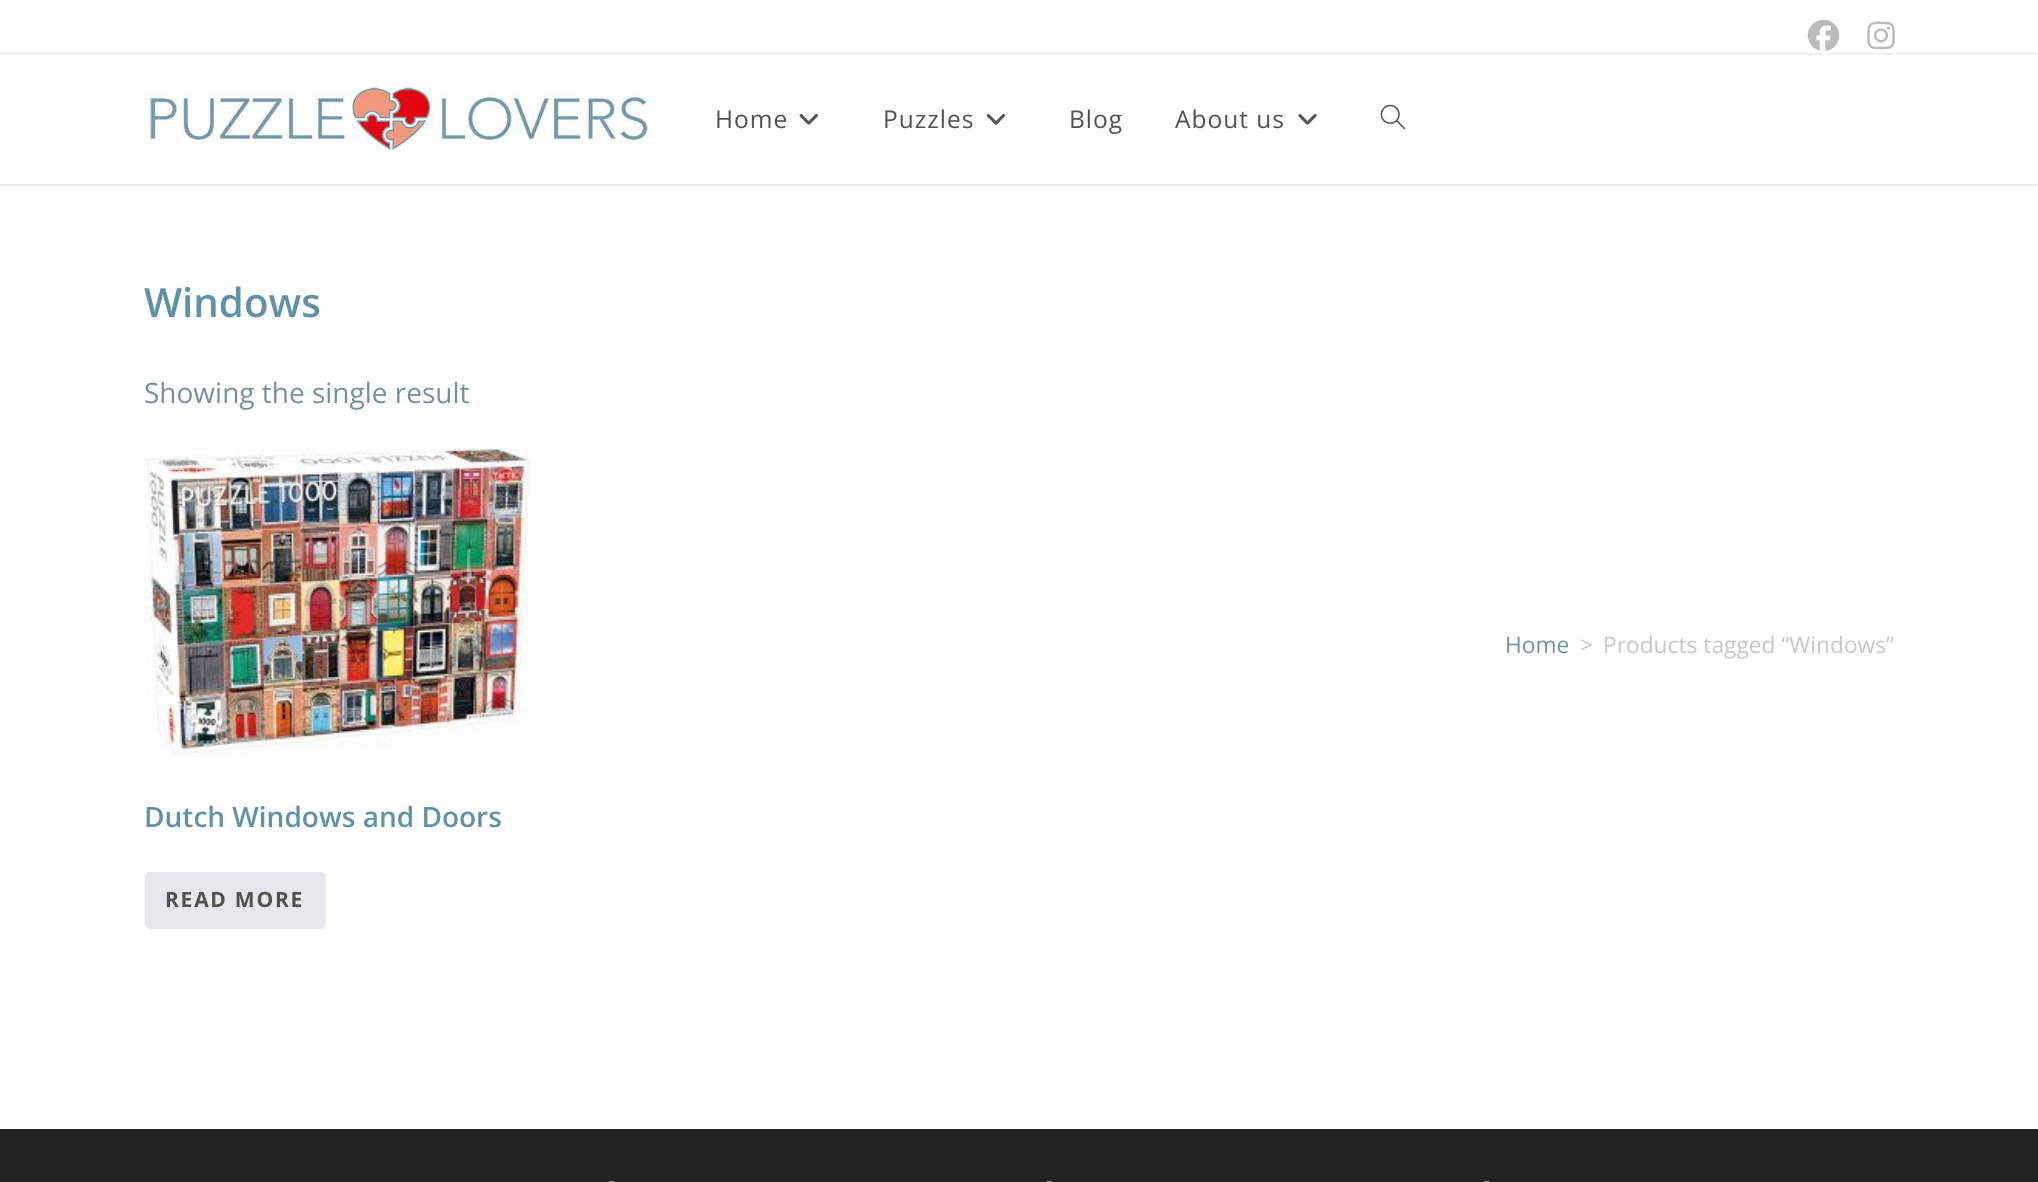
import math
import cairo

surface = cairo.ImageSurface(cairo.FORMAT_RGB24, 2038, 1182)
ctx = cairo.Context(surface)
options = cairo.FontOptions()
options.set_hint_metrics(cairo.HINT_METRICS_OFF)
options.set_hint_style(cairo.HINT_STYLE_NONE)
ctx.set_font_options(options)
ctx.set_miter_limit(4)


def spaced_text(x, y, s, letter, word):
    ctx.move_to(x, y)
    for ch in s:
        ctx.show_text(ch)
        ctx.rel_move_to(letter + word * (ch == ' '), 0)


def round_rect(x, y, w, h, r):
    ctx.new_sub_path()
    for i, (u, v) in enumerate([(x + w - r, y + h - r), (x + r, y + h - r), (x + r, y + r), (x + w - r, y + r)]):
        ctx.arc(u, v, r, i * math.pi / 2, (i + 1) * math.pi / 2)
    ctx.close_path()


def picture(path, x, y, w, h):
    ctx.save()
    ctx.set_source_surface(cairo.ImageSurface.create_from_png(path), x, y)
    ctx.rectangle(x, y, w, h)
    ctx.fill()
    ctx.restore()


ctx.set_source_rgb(1, 1, 1)
ctx.paint()
ctx.set_source_rgb(0.945, 0.945, 0.945)
ctx.rectangle(0, 53, 2038, 2)
ctx.fill()
picture("img1.png", 1807, 19, 33, 32)
picture("img2.png", 1867, 21, 28, 29)
ctx.set_source_rgb(0.933, 0.933, 0.933)
ctx.rectangle(0, 184, 2038, 2)
ctx.fill()
picture("img3.png", 145, 87, 506, 64)
ctx.select_font_face("Open Sans")
ctx.set_font_size(24.5)
ctx.set_source_rgb(0.318, 0.318, 0.318)
spaced_text(715, 128, "Home", 1, 0)
picture("img4.png", 799, 114, 19, 11)
spaced_text(883, 128, "Puzzles", 1, 0)
picture("img5.png", 986, 114, 20, 11)
spaced_text(1069, 128, "Blog", 1, 0)
spaced_text(1175, 128, "About us", 1, 0)
picture("img6.png", 1298, 114, 19, 11)
picture("img7.png", 1380, 104, 26, 26)
ctx.select_font_face("Open Sans SemiBold")
ctx.set_font_size(40.25)
ctx.set_source_rgb(0.373, 0.573, 0.659)
ctx.move_to(144, 317)
ctx.show_text("Windows")
ctx.select_font_face("Open Sans")
ctx.set_font_size(28)
ctx.set_source_rgb(0.455, 0.569, 0.627)
ctx.move_to(144, 403)
ctx.show_text("Showing the single result")
ctx.set_font_size(22.75)
ctx.move_to(1505, 653)
ctx.show_text("Home")
ctx.set_source_rgb(0.776, 0.776, 0.776)
ctx.move_to(1580, 653)
ctx.show_text(">")
ctx.move_to(1603, 653)
ctx.show_text("Products tagged “Windows”")
picture("img8.png", 145, 448, 385, 308)
ctx.select_font_face("Open Sans SemiBold")
ctx.set_font_size(28)
ctx.set_source_rgb(0.373, 0.573, 0.659)
ctx.move_to(144, 827)
ctx.show_text("Dutch Windows and Doors")
ctx.set_source_rgb(0.914, 0.902, 0.929)
round_rect(145, 872, 181, 57, 5)
ctx.fill()
ctx.select_font_face("Open Sans", cairo.FONT_SLANT_NORMAL, cairo.FONT_WEIGHT_BOLD)
ctx.set_font_size(21)
ctx.set_source_rgb(0.318, 0.318, 0.318)
spaced_text(165, 907, "READ MORE", 1.75, 0)
ctx.set_source_rgb(0.133, 0.133, 0.133)
ctx.rectangle(0, 1129, 2038, 53)
ctx.fill()
ctx.set_source_rgb(0.455, 0.569, 0.627)
ctx.rectangle(609, 1181, 5, 1)
ctx.fill()
ctx.rectangle(1047, 1181, 5, 1)
ctx.fill()
ctx.rectangle(1484, 1181, 5, 1)
ctx.fill()
surface.write_to_png("page.png")
